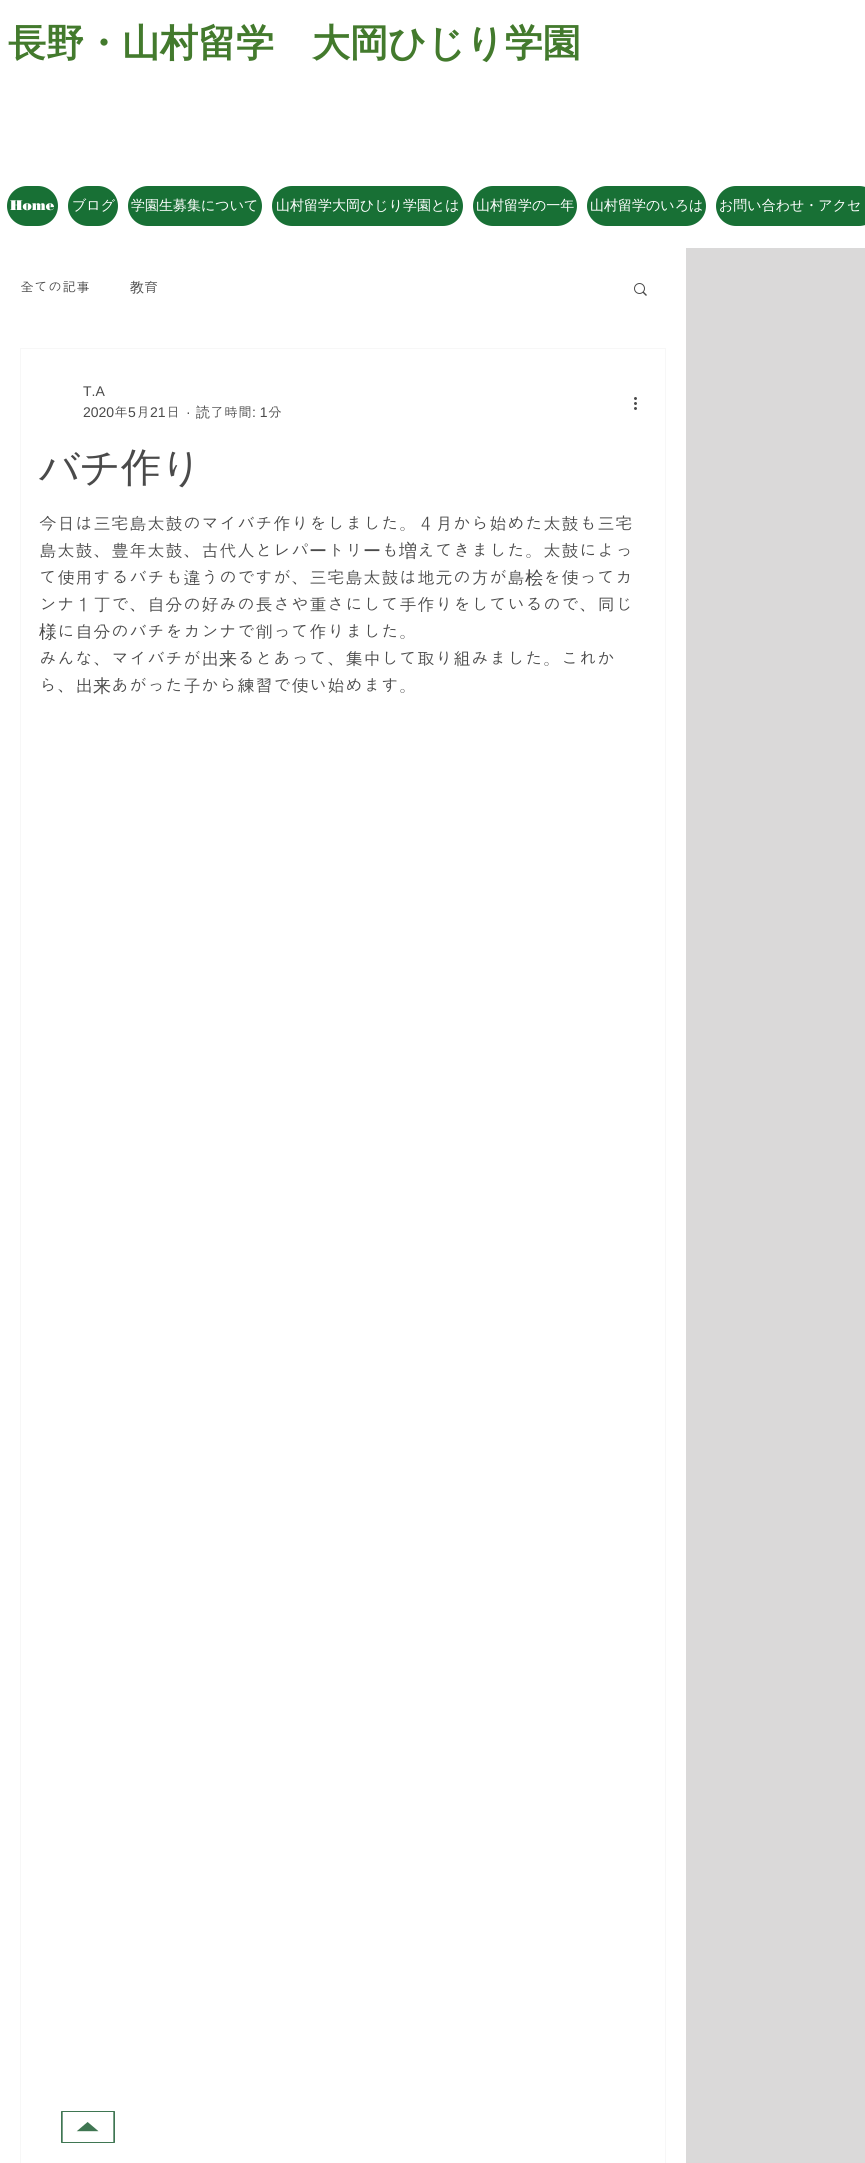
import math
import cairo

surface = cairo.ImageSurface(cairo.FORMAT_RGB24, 865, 2163)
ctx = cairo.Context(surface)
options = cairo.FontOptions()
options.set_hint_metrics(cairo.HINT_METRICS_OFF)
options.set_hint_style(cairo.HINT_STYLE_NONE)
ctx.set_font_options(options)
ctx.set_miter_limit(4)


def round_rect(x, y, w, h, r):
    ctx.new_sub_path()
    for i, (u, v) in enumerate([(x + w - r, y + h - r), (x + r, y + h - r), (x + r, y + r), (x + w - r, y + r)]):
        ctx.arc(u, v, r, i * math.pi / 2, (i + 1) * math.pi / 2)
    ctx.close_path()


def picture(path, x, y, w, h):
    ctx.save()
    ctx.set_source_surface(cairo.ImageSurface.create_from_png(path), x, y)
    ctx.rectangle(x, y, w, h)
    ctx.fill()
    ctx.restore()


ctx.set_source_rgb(1, 1, 1)
ctx.paint()
ctx.select_font_face("WenQuanYi Zen Hei", cairo.FONT_SLANT_NORMAL, cairo.FONT_WEIGHT_BOLD)
ctx.set_font_size(38)
ctx.set_source_rgb(0.263, 0.478, 0.176)
ctx.move_to(8, 56)
ctx.show_text("長野・山村留学　大岡ひじり学園")
ctx.set_source_rgb(0.094, 0.439, 0.208)
round_rect(7, 186, 51, 40, 20)
ctx.fill()
ctx.select_font_face("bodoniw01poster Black")
ctx.set_font_size(14)
ctx.set_source_rgb(1, 1, 1)
ctx.move_to(10, 210)
ctx.show_text("Home")
ctx.set_source_rgb(0.094, 0.439, 0.208)
round_rect(68, 186, 50, 40, 20)
ctx.fill()
ctx.select_font_face("WenQuanYi Zen Hei Medium")
ctx.set_source_rgb(1, 1, 1)
ctx.move_to(72, 210)
ctx.show_text("ブログ")
ctx.set_source_rgb(0.094, 0.439, 0.208)
round_rect(128, 186, 134, 40, 20)
ctx.fill()
ctx.set_source_rgb(1, 1, 1)
ctx.move_to(131, 210)
ctx.show_text("学園生募集について")
ctx.set_source_rgb(0.094, 0.439, 0.208)
round_rect(272, 186, 191, 40, 20)
ctx.fill()
ctx.set_source_rgb(1, 1, 1)
ctx.move_to(276, 210)
ctx.show_text("山村留学大岡ひじり学園とは")
ctx.set_source_rgb(0.094, 0.439, 0.208)
round_rect(473, 186, 104, 40, 20)
ctx.fill()
ctx.set_source_rgb(1, 1, 1)
ctx.move_to(476, 210)
ctx.show_text("山村留学の一年")
ctx.set_source_rgb(0.094, 0.439, 0.208)
round_rect(587, 186, 119, 40, 20)
ctx.fill()
ctx.set_source_rgb(1, 1, 1)
ctx.move_to(590, 210)
ctx.show_text("山村留学のいろは")
ctx.set_source_rgb(0.094, 0.439, 0.208)
round_rect(716, 186, 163, 40, 20)
ctx.fill()
ctx.set_source_rgb(1, 1, 1)
ctx.move_to(719, 210)
ctx.show_text("お問い合わせ・アクセ")
ctx.select_font_face("Dotum")
ctx.set_source_rgb(0.29, 0.29, 0.29)
ctx.move_to(20, 292)
ctx.show_text("全ての記事")
ctx.select_font_face("WenQuanYi Zen Hei Medium")
ctx.move_to(130, 292)
ctx.show_text("教")
ctx.select_font_face("Dotum")
ctx.move_to(144, 292)
ctx.show_text("育")
picture("img1.png", 634, 283, 13, 13)
ctx.rectangle(20.5, 348.5, 645, 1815)
ctx.set_source_rgb(0.965, 0.965, 0.965)
ctx.set_line_width(1)
ctx.stroke()
ctx.select_font_face("Liberation Sans")
ctx.set_source_rgb(0.29, 0.29, 0.29)
ctx.move_to(83, 396)
ctx.show_text("T.A")
ctx.move_to(83, 417)
ctx.show_text("2020")
ctx.select_font_face("Dotum")
ctx.move_to(114, 417)
ctx.show_text("年")
ctx.select_font_face("Liberation Sans")
ctx.move_to(128, 417)
ctx.show_text("5")
ctx.select_font_face("Dotum")
ctx.move_to(136, 417)
ctx.show_text("月")
ctx.select_font_face("Liberation Sans")
ctx.move_to(150, 417)
ctx.show_text("21")
ctx.select_font_face("Dotum")
ctx.move_to(166, 417)
ctx.show_text("日")
ctx.select_font_face("Liberation Sans")
ctx.move_to(186, 417)
ctx.show_text("·")
ctx.select_font_face("WenQuanYi Zen Hei Medium")
ctx.move_to(196, 417)
ctx.show_text("読")
ctx.select_font_face("Dotum")
ctx.move_to(210, 417)
ctx.show_text("了時間")
ctx.select_font_face("Liberation Sans")
ctx.move_to(252, 417)
ctx.show_text(": 1")
ctx.select_font_face("Dotum")
ctx.move_to(268, 417)
ctx.show_text("分")
picture("img2.png", 634, 397, 3, 13)
ctx.select_font_face("WenQuanYi Zen Hei Medium")
ctx.set_font_size(40)
ctx.move_to(39, 481)
ctx.show_text("バチ作り")
ctx.select_font_face("Dotum")
ctx.set_font_size(18)
ctx.move_to(39, 530)
ctx.show_text("今日は三宅島太鼓のマイバチ作りをしました。４月から始めた太鼓も三宅")
ctx.move_to(39, 557)
ctx.show_text("島太鼓、豊年太鼓、古代人とレパ")
ctx.select_font_face("WenQuanYi Zen Hei Medium")
ctx.move_to(309, 557)
ctx.show_text("ー")
ctx.select_font_face("Dotum")
ctx.move_to(327, 557)
ctx.show_text("トリ")
ctx.select_font_face("WenQuanYi Zen Hei Medium")
ctx.move_to(363, 557)
ctx.show_text("ー")
ctx.select_font_face("Dotum")
ctx.move_to(381, 557)
ctx.show_text("も")
ctx.select_font_face("WenQuanYi Zen Hei Medium")
ctx.move_to(399, 557)
ctx.show_text("増")
ctx.select_font_face("Dotum")
ctx.move_to(417, 557)
ctx.show_text("えてきました。太鼓によっ")
ctx.move_to(39, 584)
ctx.show_text("て使用するバチも違うのですが、三宅島太鼓は地元の方が島")
ctx.select_font_face("WenQuanYi Zen Hei Medium")
ctx.move_to(525, 584)
ctx.show_text("桧")
ctx.select_font_face("Dotum")
ctx.move_to(543, 584)
ctx.show_text("を使ってカ")
ctx.move_to(39, 611)
ctx.show_text("ンナ１丁で、自分の好みの長さや重さにして手作りをしているので、同じ")
ctx.select_font_face("WenQuanYi Zen Hei Medium")
ctx.move_to(39, 638)
ctx.show_text("様")
ctx.select_font_face("Dotum")
ctx.move_to(57, 638)
ctx.show_text("に自分のバチをカンナで削って作りました。")
ctx.move_to(39, 665)
ctx.show_text("みんな、マイバチが出")
ctx.select_font_face("WenQuanYi Zen Hei Medium")
ctx.move_to(219, 665)
ctx.show_text("来")
ctx.select_font_face("Dotum")
ctx.move_to(237, 665)
ctx.show_text("るとあって、集中して取り組みました。これか")
ctx.move_to(39, 692)
ctx.show_text("ら、出")
ctx.select_font_face("WenQuanYi Zen Hei Medium")
ctx.move_to(93, 692)
ctx.show_text("来")
ctx.select_font_face("Dotum")
ctx.move_to(111, 692)
ctx.show_text("あがった子から練習で使い始めます。")
ctx.set_source_rgb(0.855, 0.851, 0.851)
ctx.rectangle(686, 248, 179, 1915)
ctx.fill()
picture("img3.png", 61, 2111, 54, 32)
surface.write_to_png("page.png")
